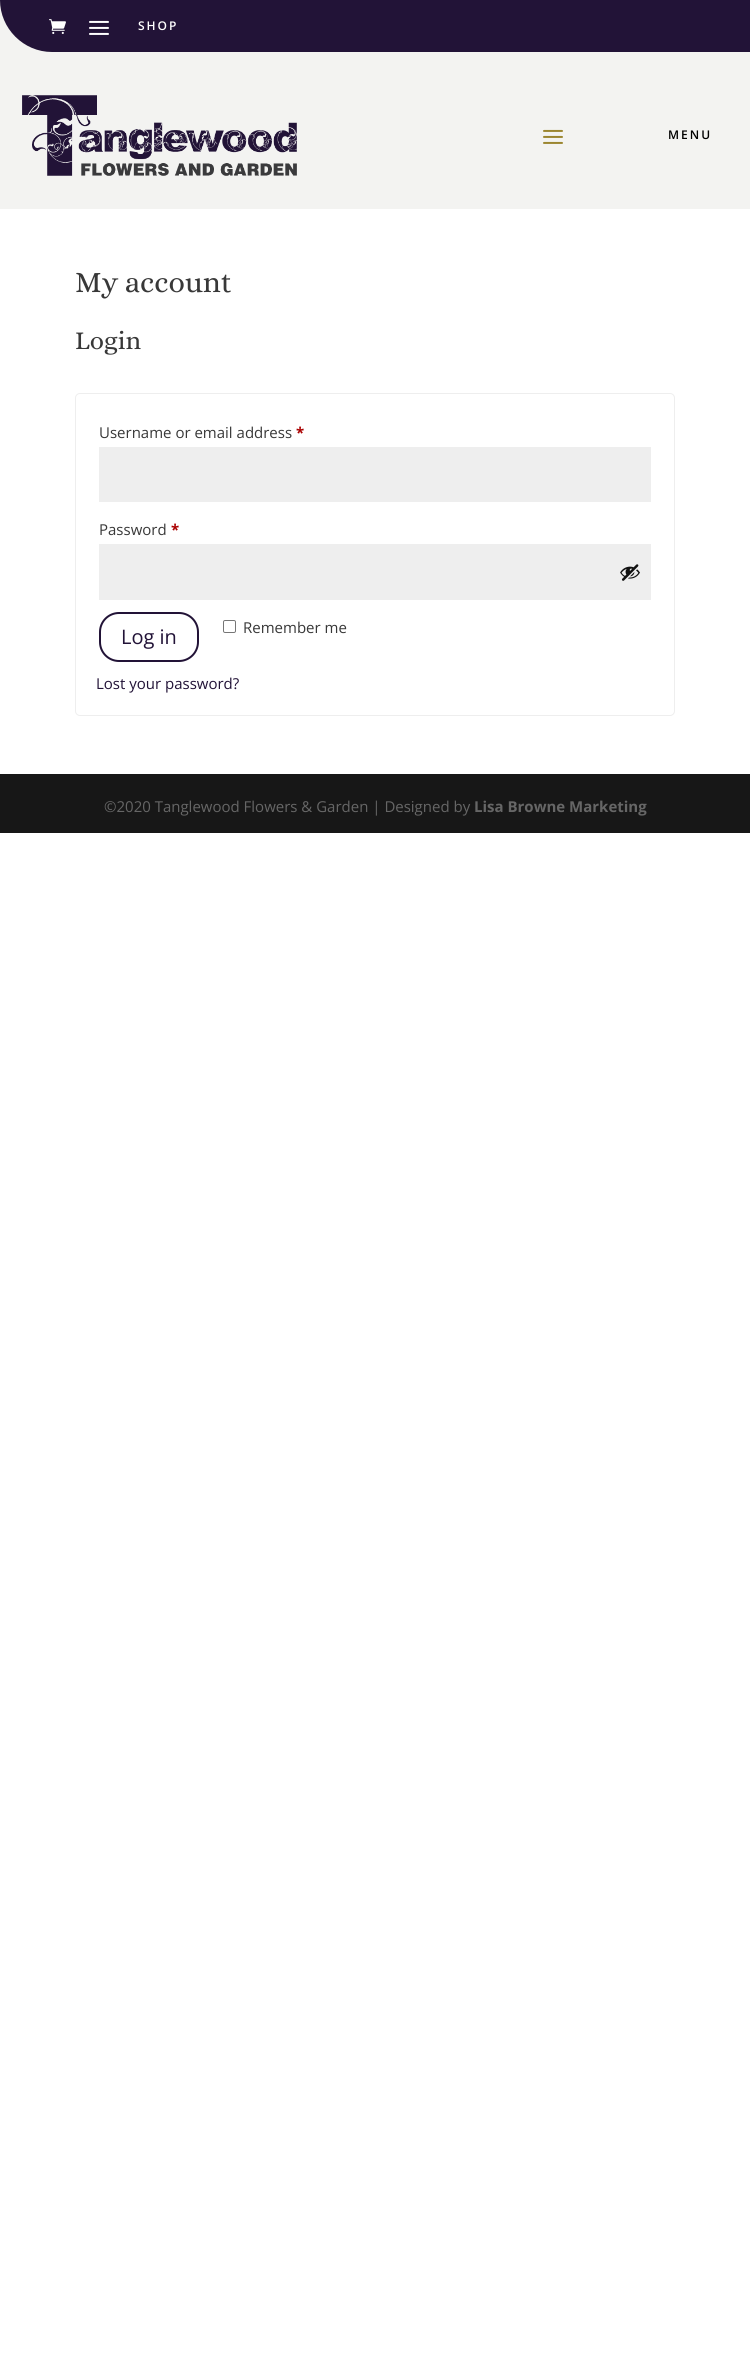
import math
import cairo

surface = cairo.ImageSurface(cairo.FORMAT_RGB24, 750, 2367)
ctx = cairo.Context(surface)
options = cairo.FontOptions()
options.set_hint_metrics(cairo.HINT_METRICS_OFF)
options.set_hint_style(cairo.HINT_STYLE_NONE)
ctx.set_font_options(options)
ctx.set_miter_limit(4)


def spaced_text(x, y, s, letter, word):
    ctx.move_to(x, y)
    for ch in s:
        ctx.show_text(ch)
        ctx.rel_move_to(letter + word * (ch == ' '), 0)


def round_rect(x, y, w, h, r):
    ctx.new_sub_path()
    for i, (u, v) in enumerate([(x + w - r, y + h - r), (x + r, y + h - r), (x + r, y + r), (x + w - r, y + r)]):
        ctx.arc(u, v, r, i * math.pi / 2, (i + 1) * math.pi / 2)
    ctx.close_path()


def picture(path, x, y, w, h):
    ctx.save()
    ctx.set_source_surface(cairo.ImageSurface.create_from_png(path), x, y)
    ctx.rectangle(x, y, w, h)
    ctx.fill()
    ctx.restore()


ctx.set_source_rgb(1, 1, 1)
ctx.paint()
ctx.set_source_rgb(0.953, 0.953, 0.945)
ctx.rectangle(0, 0, 750, 209)
ctx.fill()
ctx.set_source_rgb(0.133, 0.075, 0.216)
ctx.new_path()
ctx.move_to(0, 0)
ctx.line_to(750, 0)
ctx.line_to(750, 52)
ctx.line_to(52, 52)
ctx.curve_to(23.5, 52, 0, 28.5, 0, 0)
ctx.close_path()
ctx.fill()
picture("img1.png", 49, 19, 17, 15)
picture("img2.png", 89, 20, 20, 15)
ctx.select_font_face("Open Sans SemiBold")
ctx.set_font_size(12)
ctx.set_source_rgb(1, 1, 1)
spaced_text(138, 30, "SHOP", 2, 0)
picture("img3.png", 22, 95, 275, 81)
picture("img4.png", 543, 129, 20, 15)
ctx.set_source_rgb(0, 0, 0)
spaced_text(668, 139, "MENU", 2, 0)
ctx.select_font_face("Alice")
ctx.set_font_size(30)
ctx.set_source_rgb(0.22, 0.22, 0.22)
ctx.move_to(75, 292)
ctx.show_text("My account")
ctx.set_font_size(26)
ctx.move_to(75, 349)
ctx.show_text("Login")
round_rect(75.5, 393.5, 599, 322, 4.5)
ctx.set_source_rgb(0.933, 0.933, 0.933)
ctx.set_line_width(1)
ctx.stroke()
ctx.select_font_face("Open Sans")
ctx.set_font_size(15)
ctx.set_source_rgb(0.22, 0.22, 0.22)
ctx.move_to(99, 438)
ctx.show_text("Username or email address")
ctx.select_font_face("Open Sans", cairo.FONT_SLANT_NORMAL, cairo.FONT_WEIGHT_BOLD)
ctx.set_source_rgb(0.667, 0, 0)
ctx.move_to(296, 438)
ctx.show_text("*")
ctx.set_source_rgb(0.933, 0.933, 0.933)
ctx.rectangle(99, 447, 552, 55)
ctx.fill()
ctx.select_font_face("Open Sans")
ctx.set_source_rgb(0.22, 0.22, 0.22)
ctx.move_to(99, 535)
ctx.show_text("Password")
ctx.select_font_face("Open Sans", cairo.FONT_SLANT_NORMAL, cairo.FONT_WEIGHT_BOLD)
ctx.set_source_rgb(0.667, 0, 0)
ctx.move_to(171, 535)
ctx.show_text("*")
ctx.set_source_rgb(0.933, 0.933, 0.933)
ctx.rectangle(99, 544, 552, 56)
ctx.fill()
picture("img5.png", 620, 564, 20, 17)
round_rect(223.5, 620.5, 12, 12, 1.5)
ctx.set_source_rgb(0.463, 0.463, 0.463)
ctx.stroke()
ctx.select_font_face("Open Sans")
ctx.set_source_rgb(0.22, 0.22, 0.22)
ctx.move_to(243, 633)
ctx.show_text("Remember me")
round_rect(100, 613, 98, 48, 19)
ctx.set_source_rgb(0.133, 0.075, 0.216)
ctx.set_line_width(2)
ctx.stroke()
ctx.set_font_size(20)
ctx.move_to(121, 644)
ctx.show_text("Log in")
ctx.set_font_size(15)
ctx.move_to(96, 689)
ctx.show_text("Lost your password?")
ctx.set_source_rgb(0.09, 0.09, 0.09)
ctx.rectangle(0, 774, 750, 59)
ctx.fill()
ctx.set_source_rgb(0.4, 0.4, 0.4)
ctx.move_to(104, 812)
ctx.show_text("©2020 Tanglewood Flowers & Garden | Designed by")
ctx.select_font_face("Open Sans", cairo.FONT_SLANT_NORMAL, cairo.FONT_WEIGHT_BOLD)
ctx.move_to(474, 812)
ctx.show_text("Lisa Browne Marketing")
surface.write_to_png("page.png")
